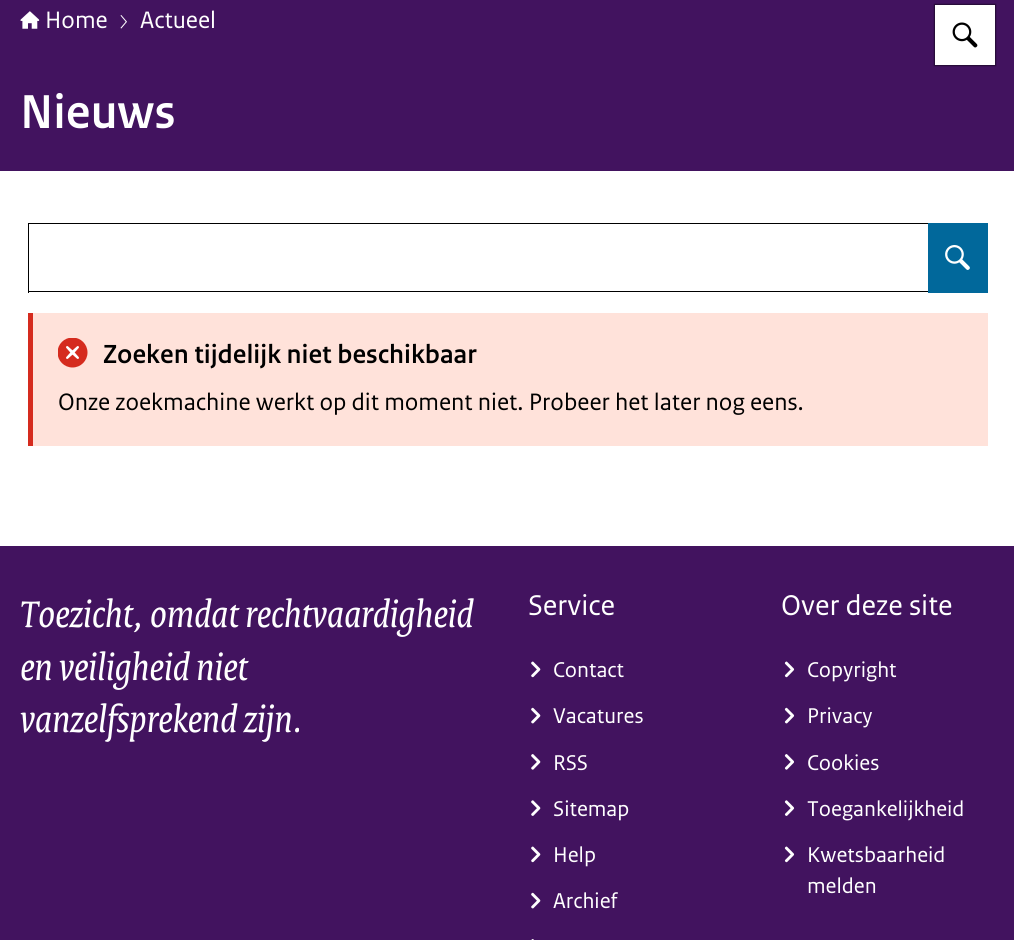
import math
import cairo

surface = cairo.ImageSurface(cairo.FORMAT_RGB24, 1014, 940)
ctx = cairo.Context(surface)
options = cairo.FontOptions()
options.set_hint_metrics(cairo.HINT_METRICS_OFF)
options.set_hint_style(cairo.HINT_STYLE_NONE)
ctx.set_font_options(options)
ctx.set_miter_limit(4)


def round_rect(x, y, w, h, r):
    ctx.new_sub_path()
    for i, (u, v) in enumerate([(x + w - r, y + h - r), (x + r, y + h - r), (x + r, y + r), (x + w - r, y + r)]):
        ctx.arc(u, v, r, i * math.pi / 2, (i + 1) * math.pi / 2)
    ctx.close_path()


def shadow(x, y, w, h, r, blur, alpha):
    ctx.push_group_with_content(cairo.CONTENT_ALPHA)
    ctx.set_operator(cairo.OPERATOR_SOURCE)
    for i in range(15, -16, -2):
        e = blur * i / 6
        if min(w, h) + 2 * e > 0:
            ctx.set_source_rgba(0, 0, 0, alpha * math.erfc((i - 1) / 8.5) / 2)
            round_rect(x - e, y - e, w + 2 * e, h + 2 * e, max(0, min(r + e + blur * .6, min(w, h) / 2 + e)))
            ctx.fill()
    ctx.mask(ctx.pop_group())


def picture(path, x, y, w, h):
    ctx.save()
    ctx.set_source_surface(cairo.ImageSurface.create_from_png(path), x, y)
    ctx.rectangle(x, y, w, h)
    ctx.fill()
    ctx.restore()


ctx.set_source_rgb(1, 1, 1)
ctx.paint()
ctx.set_source_rgb(0.259, 0.078, 0.373)
ctx.rectangle(0, 0, 1014, 171)
ctx.fill()
picture("img1.png", 20, 11, 20, 18)
ctx.select_font_face("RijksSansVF")
ctx.set_font_size(25)
ctx.set_source_rgb(1, 1, 1)
ctx.move_to(45, 28)
ctx.show_text("Home")
picture("img2.png", 120, 15, 7, 14)
ctx.move_to(140, 28)
ctx.show_text("Actueel")
ctx.set_source_rgb(0, 0, 0)
shadow(934, 4, 62, 62, 0, 0.5, 0.44)
ctx.set_source_rgb(1, 1, 1)
ctx.rectangle(935, 5, 60, 60)
ctx.fill()
picture("img3.png", 952, 22, 26, 26)
ctx.select_font_face("RijksSansVF SemiBold")
ctx.set_font_size(50)
ctx.move_to(20, 128)
ctx.show_text("Nieuws")
ctx.set_source_rgb(0, 0, 0)
ctx.rectangle(28, 223, 900, 1)
ctx.fill()
ctx.rectangle(28, 291, 900, 1)
ctx.fill()
ctx.rectangle(28, 223, 1, 70)
ctx.fill()
ctx.set_source_rgb(0.004, 0.408, 0.608)
ctx.rectangle(928, 223, 60, 70)
ctx.fill()
picture("img4.png", 945, 245, 25, 25)
ctx.set_source_rgb(1, 0.886, 0.855)
ctx.rectangle(33, 313, 955, 133)
ctx.fill()
ctx.set_source_rgb(0.835, 0.169, 0.118)
ctx.rectangle(28, 313, 5, 133)
ctx.fill()
picture("img5.png", 58, 338, 30, 30)
ctx.set_font_size(27.5)
ctx.set_source_rgb(0, 0, 0)
ctx.move_to(103, 363)
ctx.show_text("Zoeken tijdelijk niet beschikbaar")
ctx.select_font_face("RijksSansVF")
ctx.set_font_size(25)
ctx.move_to(58, 410)
ctx.show_text("Onze zoekmachine werkt op dit moment niet. Probeer het later nog eens.")
ctx.set_source_rgb(0.259, 0.078, 0.373)
ctx.rectangle(0, 546, 1014, 394)
ctx.fill()
ctx.select_font_face("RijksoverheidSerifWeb", cairo.FONT_SLANT_ITALIC)
ctx.set_font_size(40)
ctx.set_source_rgb(1, 1, 1)
ctx.move_to(20, 627)
ctx.show_text("Toezicht, omdat rechtvaardigheid")
ctx.move_to(20, 680)
ctx.show_text("en veiligheid niet")
ctx.move_to(20, 732)
ctx.show_text("vanzelfsprekend zijn.")
ctx.select_font_face("RijksSansVF")
ctx.set_font_size(30)
ctx.move_to(528, 615)
ctx.show_text("Service")
picture("img6.png", 531, 661, 10, 17)
ctx.set_font_size(22.5)
ctx.move_to(553, 677)
ctx.show_text("Contact")
picture("img7.png", 531, 707, 10, 17)
ctx.move_to(553, 723)
ctx.show_text("Vacatures")
picture("img8.png", 531, 754, 10, 16)
ctx.move_to(553, 770)
ctx.show_text("RSS")
picture("img9.png", 531, 800, 10, 16)
ctx.move_to(553, 816)
ctx.show_text("Sitemap")
picture("img6.png", 531, 846, 10, 17)
ctx.move_to(553, 862)
ctx.show_text("Help")
picture("img7.png", 531, 892, 10, 17)
ctx.move_to(553, 908)
ctx.show_text("Archief")
picture("img10.png", 531, 939, 3, 1)
ctx.set_font_size(30)
ctx.move_to(781, 615)
ctx.show_text("Over deze site")
picture("img11.png", 784, 661, 11, 17)
ctx.set_font_size(22.5)
ctx.move_to(807, 677)
ctx.show_text("Copyright")
picture("img12.png", 784, 707, 11, 17)
ctx.move_to(807, 723)
ctx.show_text("Privacy")
picture("img13.png", 784, 754, 10, 16)
ctx.move_to(807, 770)
ctx.show_text("Cookies")
picture("img14.png", 784, 800, 11, 16)
ctx.move_to(807, 816)
ctx.show_text("Toegankelijkheid")
picture("img11.png", 784, 846, 11, 17)
ctx.move_to(807, 862)
ctx.show_text("Kwetsbaarheid")
ctx.move_to(807, 893)
ctx.show_text("melden")
surface.write_to_png("page.png")
